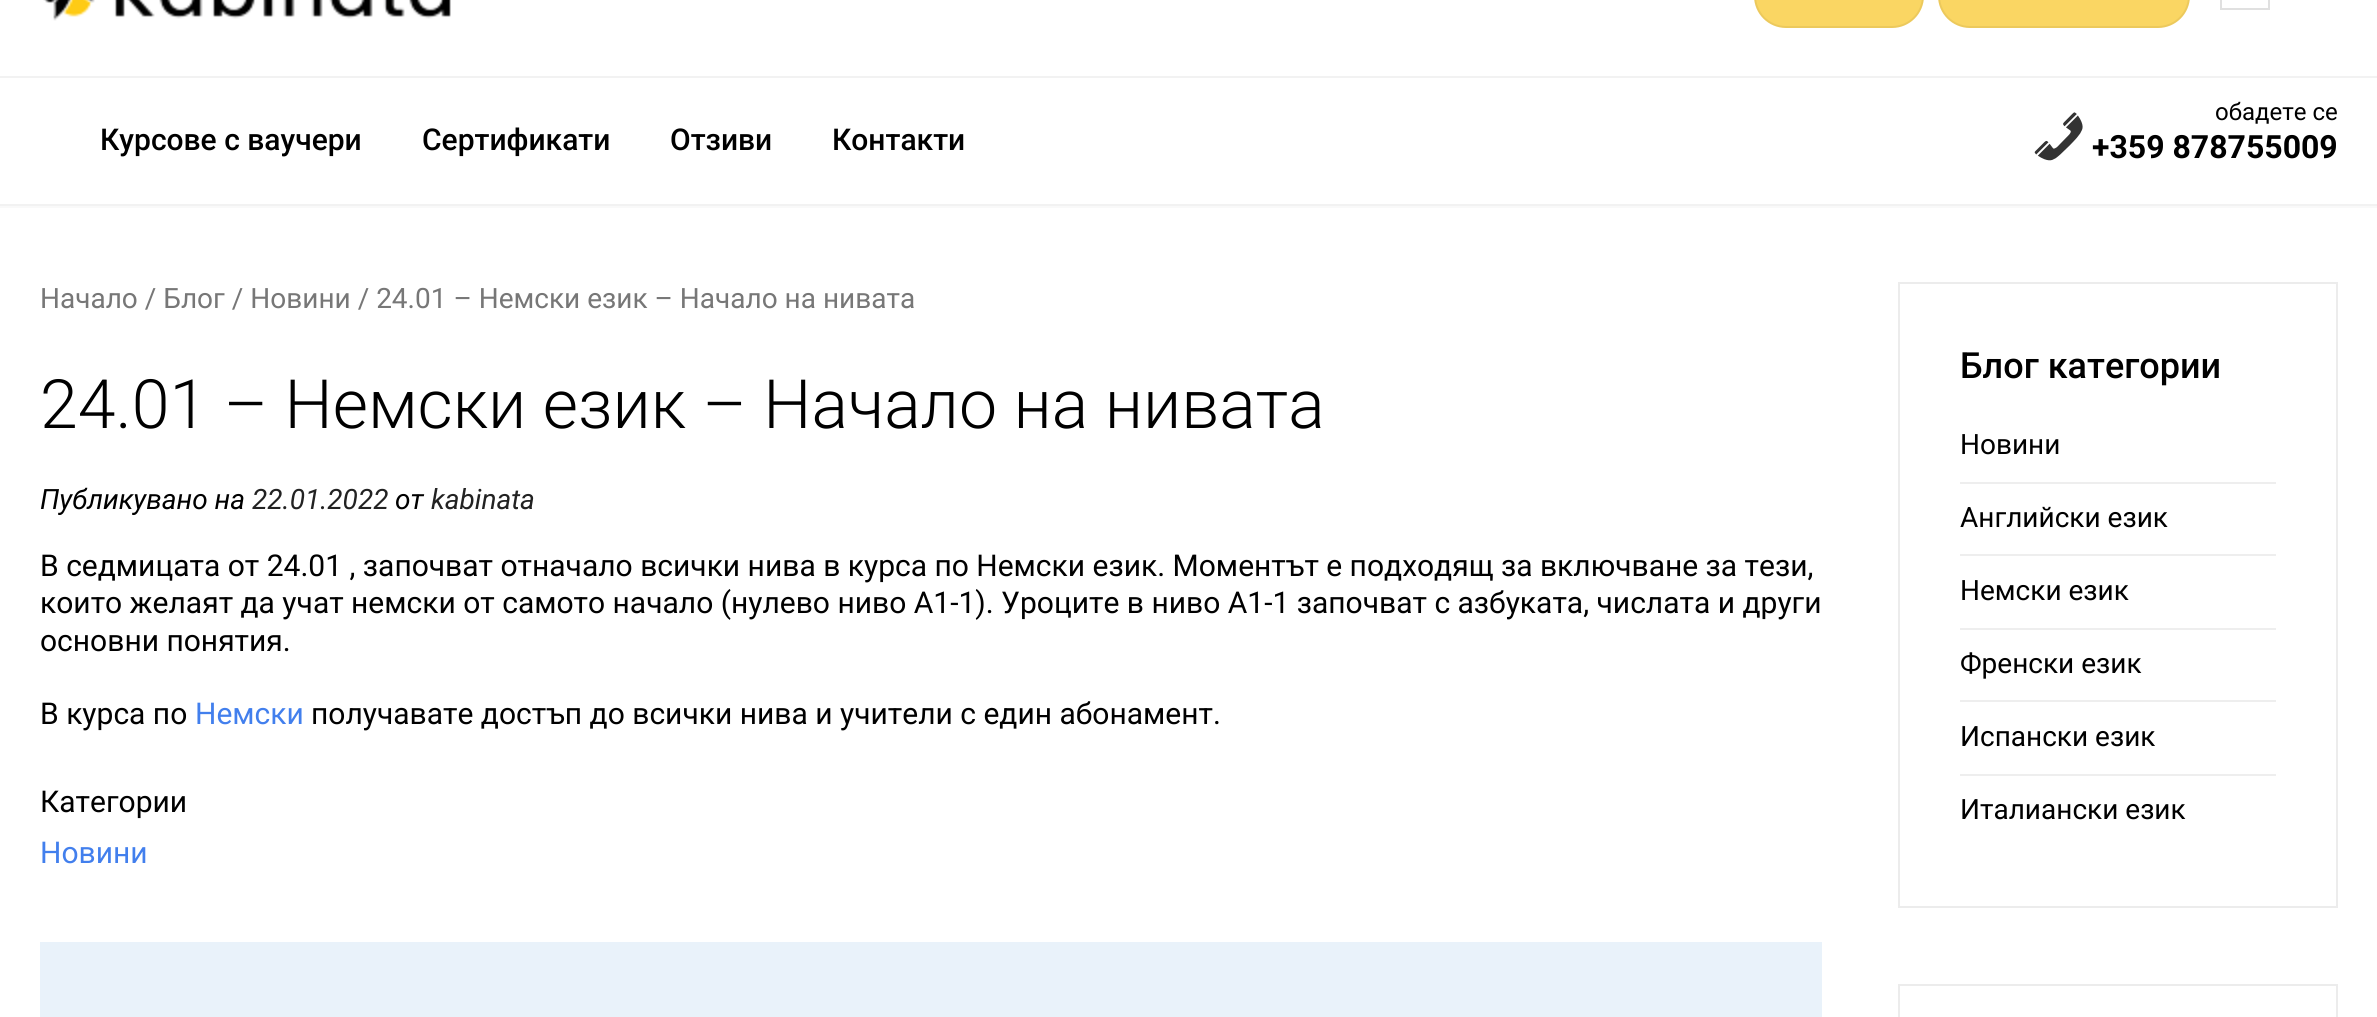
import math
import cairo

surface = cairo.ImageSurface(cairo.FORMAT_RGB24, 2377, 1017)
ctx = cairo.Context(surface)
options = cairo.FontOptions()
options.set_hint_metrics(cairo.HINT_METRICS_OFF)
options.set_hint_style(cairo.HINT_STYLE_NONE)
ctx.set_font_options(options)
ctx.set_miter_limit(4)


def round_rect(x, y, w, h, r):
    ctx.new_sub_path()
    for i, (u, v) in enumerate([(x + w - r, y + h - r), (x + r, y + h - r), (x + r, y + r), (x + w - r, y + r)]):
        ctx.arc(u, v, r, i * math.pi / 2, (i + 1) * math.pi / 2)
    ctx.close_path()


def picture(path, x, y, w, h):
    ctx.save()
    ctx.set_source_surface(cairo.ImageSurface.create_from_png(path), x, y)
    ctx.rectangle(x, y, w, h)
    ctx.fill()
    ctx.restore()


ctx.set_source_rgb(1, 1, 1)
ctx.paint()
ctx.set_source_rgb(0.949, 0.949, 0.949)
ctx.rectangle(0, 76, 2377, 2)
ctx.fill()
picture("img1.png", 43, 0, 408, 21)
ctx.set_source_rgb(0.98, 0.839, 0.388)
round_rect(1755, -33, 168, 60, 31)
ctx.fill_preserve()
ctx.set_source_rgb(0.922, 0.788, 0.361)
ctx.stroke()
ctx.set_source_rgb(0.98, 0.839, 0.388)
round_rect(1939, -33, 250, 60, 31)
ctx.fill_preserve()
ctx.set_source_rgb(0.922, 0.788, 0.361)
ctx.stroke()
ctx.rectangle(2221, -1, 48, 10)
ctx.set_source_rgb(0.878, 0.878, 0.878)
ctx.stroke()
ctx.set_source_rgb(0.976, 0.976, 0.976)
ctx.rectangle(0, 206, 2377, 2)
ctx.fill()
ctx.set_source_rgb(0.949, 0.949, 0.949)
ctx.rectangle(0, 204, 2377, 2)
ctx.fill()
ctx.select_font_face("Roboto Medium")
ctx.set_font_size(30)
ctx.set_source_rgb(0, 0, 0)
ctx.move_to(100, 150)
ctx.show_text("Курсове с ваучери")
ctx.move_to(422, 150)
ctx.show_text("Сертификати")
ctx.move_to(670, 150)
ctx.show_text("Отзиви")
ctx.move_to(832, 150)
ctx.show_text("Контакти")
picture("img2.png", 2034, 112, 49, 49)
ctx.select_font_face("Roboto")
ctx.set_font_size(24)
ctx.move_to(2215, 120)
ctx.show_text("обадете се")
ctx.select_font_face("Roboto", cairo.FONT_SLANT_NORMAL, cairo.FONT_WEIGHT_BOLD)
ctx.set_font_size(32)
ctx.move_to(2092, 158)
ctx.show_text("+359 878755009")
ctx.select_font_face("Roboto")
ctx.set_font_size(28)
ctx.set_source_rgb(0.467, 0.467, 0.467)
ctx.move_to(40, 308)
ctx.show_text("Начало / Блог / Новини / 24.01 – Немски език – Начало на нивата")
ctx.select_font_face("Roboto Light")
ctx.set_font_size(68)
ctx.set_source_rgb(0, 0, 0)
ctx.move_to(40, 428)
ctx.show_text("24.01 – Немски език – Начало на нивата")
ctx.select_font_face("Roboto", cairo.FONT_SLANT_ITALIC)
ctx.set_font_size(28)
ctx.move_to(40, 509)
ctx.show_text("Публикувано на")
ctx.set_source_rgb(0.133, 0.133, 0.133)
ctx.move_to(252, 509)
ctx.show_text("22.01.2022")
ctx.set_source_rgb(0, 0, 0)
ctx.move_to(395, 509)
ctx.show_text("от")
ctx.set_source_rgb(0.133, 0.133, 0.133)
ctx.move_to(431, 509)
ctx.show_text("kabinata")
ctx.select_font_face("Roboto")
ctx.set_font_size(30)
ctx.set_source_rgb(0, 0, 0)
ctx.move_to(40, 576)
ctx.show_text("В седмицата от 24.01 , започват отначало всички нива в курса по Немски език. Моментът е подходящ за включване за тези,")
ctx.move_to(40, 613)
ctx.show_text("които желаят да учат немски от самото начало (нулево ниво А1-1). Уроците в ниво А1-1 започват с азбуката, числата и други")
ctx.move_to(40, 651)
ctx.show_text("основни понятия.")
ctx.move_to(40, 724)
ctx.show_text("В курса по")
ctx.set_source_rgb(0.259, 0.498, 0.929)
ctx.move_to(195, 724)
ctx.show_text("Немски")
ctx.set_source_rgb(0, 0, 0)
ctx.move_to(311, 724)
ctx.show_text("получавате достъп до всички нива и учители с един абонамент.")
ctx.move_to(40, 812)
ctx.show_text("Категории")
ctx.set_source_rgb(0.259, 0.498, 0.929)
ctx.move_to(40, 863)
ctx.show_text("Новини")
ctx.set_source_rgb(0.914, 0.949, 0.98)
ctx.rectangle(40, 942, 1782, 75)
ctx.fill()
ctx.rectangle(1899, 283, 438, 624)
ctx.set_source_rgb(0.925, 0.925, 0.925)
ctx.stroke()
ctx.select_font_face("Roboto Medium")
ctx.set_font_size(36)
ctx.set_source_rgb(0, 0, 0)
ctx.move_to(1960, 378)
ctx.show_text("Блог категории")
ctx.set_source_rgb(0.933, 0.933, 0.933)
ctx.rectangle(1960, 482, 316, 2)
ctx.fill()
ctx.select_font_face("Roboto")
ctx.set_font_size(28)
ctx.set_source_rgb(0, 0, 0)
ctx.move_to(1960, 454)
ctx.show_text("Новини")
ctx.set_source_rgb(0.933, 0.933, 0.933)
ctx.rectangle(1960, 554, 316, 2)
ctx.fill()
ctx.set_source_rgb(0, 0, 0)
ctx.move_to(1960, 527)
ctx.show_text("Английски език")
ctx.set_source_rgb(0.933, 0.933, 0.933)
ctx.rectangle(1960, 628, 316, 2)
ctx.fill()
ctx.set_source_rgb(0, 0, 0)
ctx.move_to(1960, 600)
ctx.show_text("Немски език")
ctx.set_source_rgb(0.933, 0.933, 0.933)
ctx.rectangle(1960, 700, 316, 2)
ctx.fill()
ctx.set_source_rgb(0, 0, 0)
ctx.move_to(1960, 673)
ctx.show_text("Френски език")
ctx.set_source_rgb(0.933, 0.933, 0.933)
ctx.rectangle(1960, 774, 316, 2)
ctx.fill()
ctx.set_source_rgb(0, 0, 0)
ctx.move_to(1960, 746)
ctx.show_text("Испански език")
ctx.move_to(1960, 819)
ctx.show_text("Италиански език")
ctx.rectangle(1899, 985, 438, 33)
ctx.set_source_rgb(0.925, 0.925, 0.925)
ctx.stroke()
surface.write_to_png("page.png")
